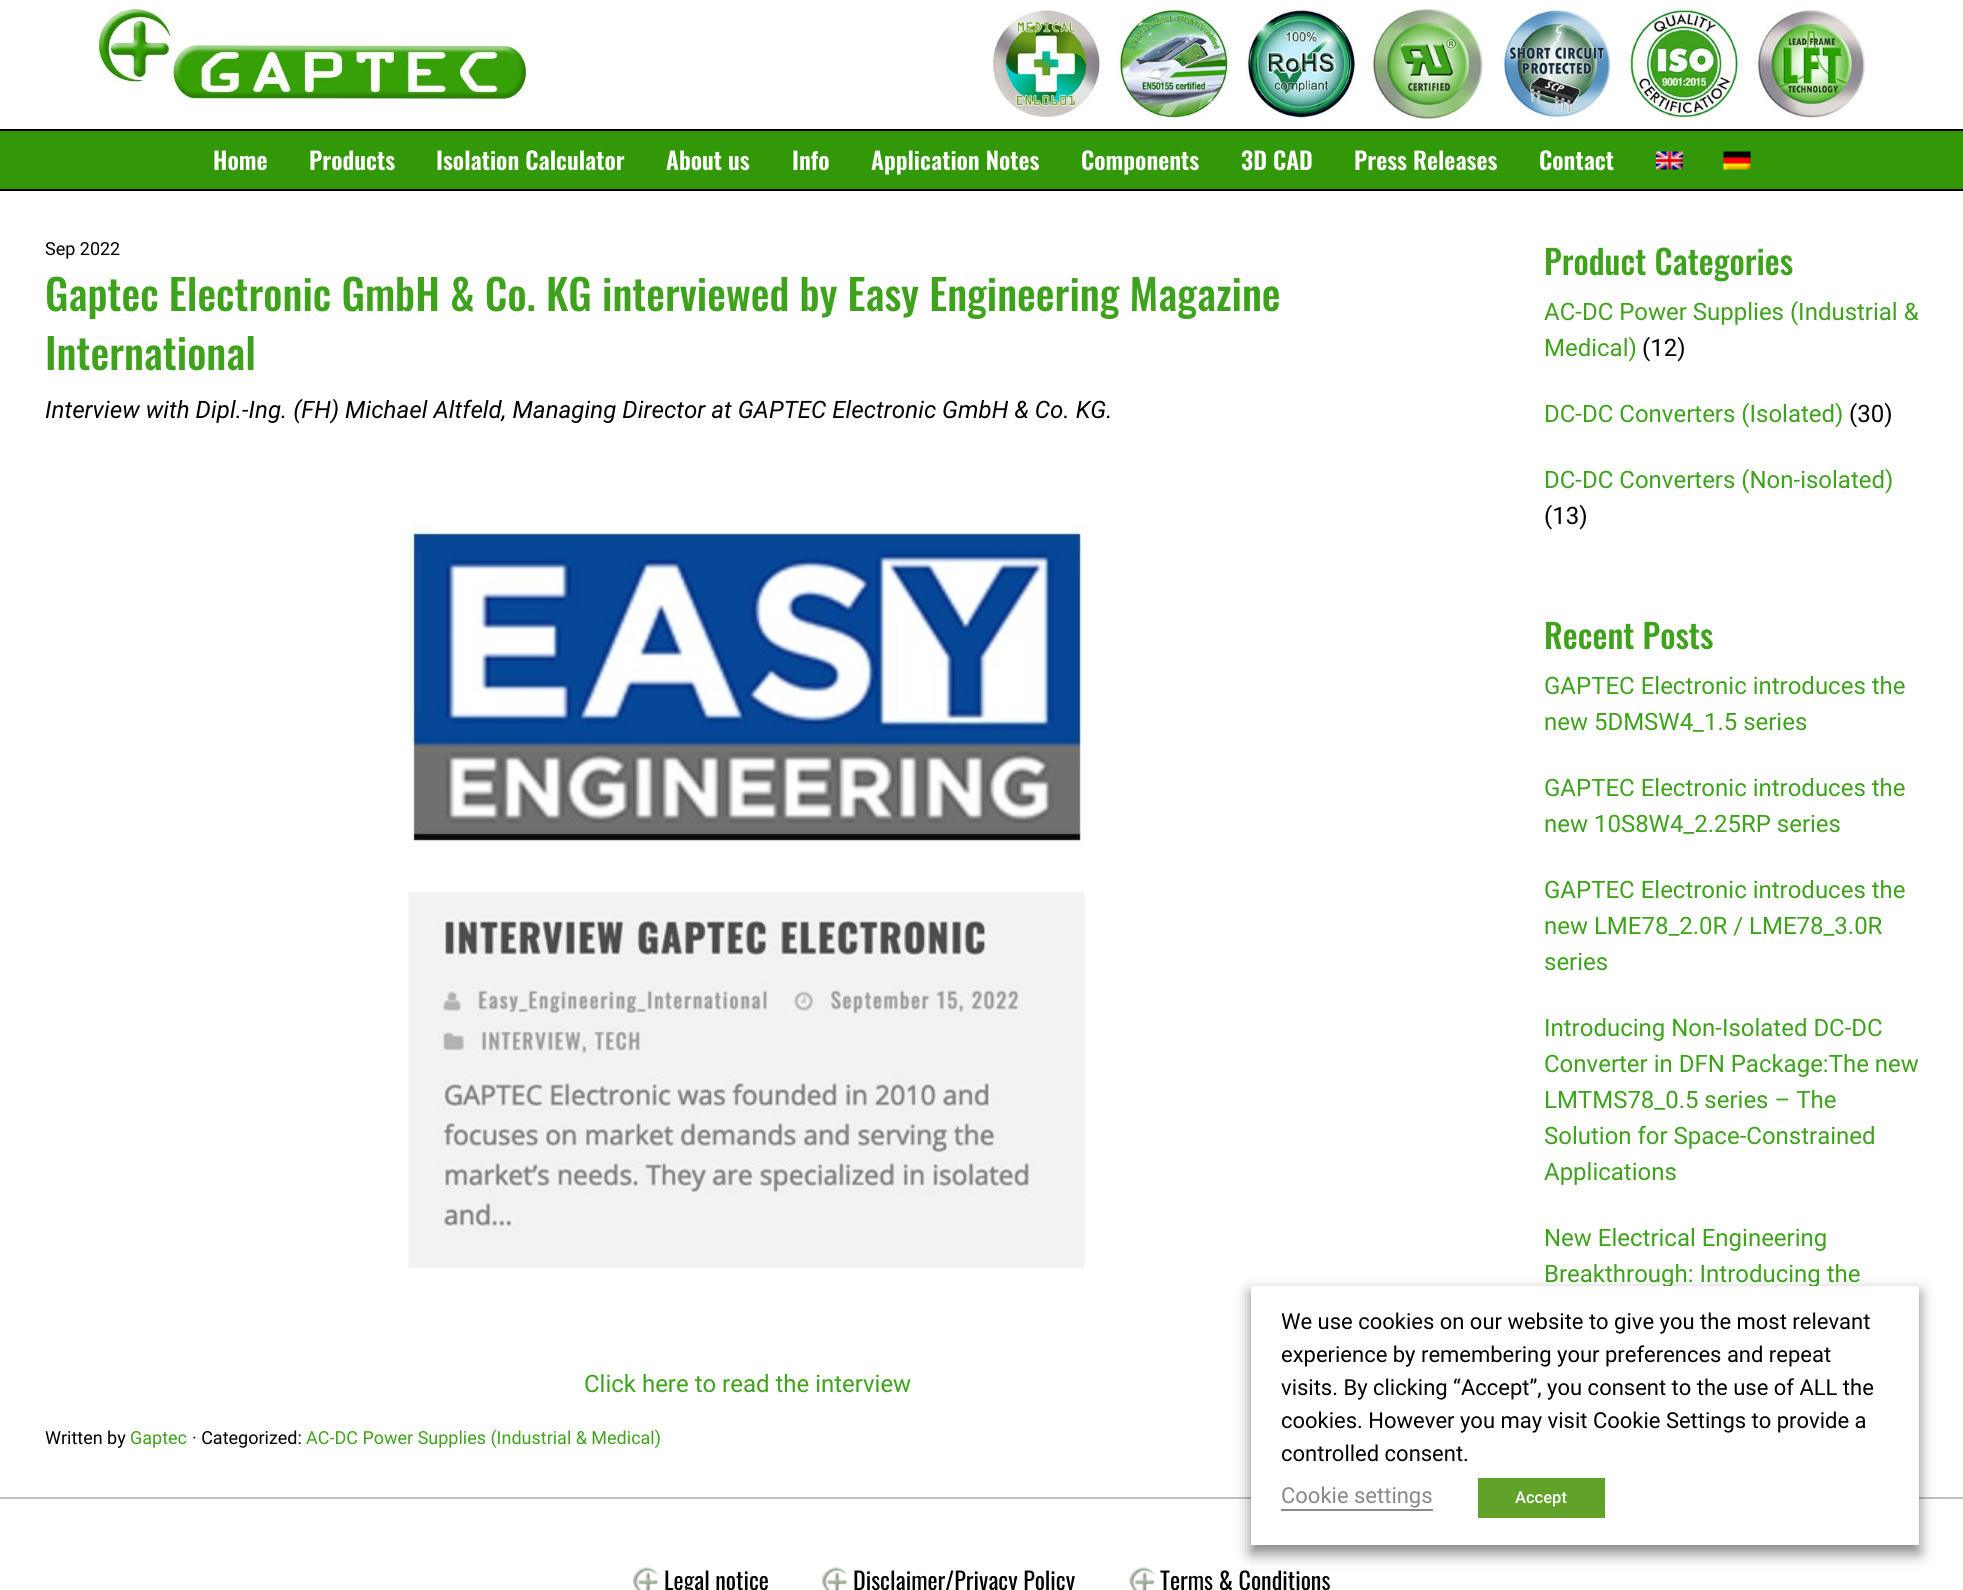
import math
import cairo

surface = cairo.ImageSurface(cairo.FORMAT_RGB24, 1963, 1590)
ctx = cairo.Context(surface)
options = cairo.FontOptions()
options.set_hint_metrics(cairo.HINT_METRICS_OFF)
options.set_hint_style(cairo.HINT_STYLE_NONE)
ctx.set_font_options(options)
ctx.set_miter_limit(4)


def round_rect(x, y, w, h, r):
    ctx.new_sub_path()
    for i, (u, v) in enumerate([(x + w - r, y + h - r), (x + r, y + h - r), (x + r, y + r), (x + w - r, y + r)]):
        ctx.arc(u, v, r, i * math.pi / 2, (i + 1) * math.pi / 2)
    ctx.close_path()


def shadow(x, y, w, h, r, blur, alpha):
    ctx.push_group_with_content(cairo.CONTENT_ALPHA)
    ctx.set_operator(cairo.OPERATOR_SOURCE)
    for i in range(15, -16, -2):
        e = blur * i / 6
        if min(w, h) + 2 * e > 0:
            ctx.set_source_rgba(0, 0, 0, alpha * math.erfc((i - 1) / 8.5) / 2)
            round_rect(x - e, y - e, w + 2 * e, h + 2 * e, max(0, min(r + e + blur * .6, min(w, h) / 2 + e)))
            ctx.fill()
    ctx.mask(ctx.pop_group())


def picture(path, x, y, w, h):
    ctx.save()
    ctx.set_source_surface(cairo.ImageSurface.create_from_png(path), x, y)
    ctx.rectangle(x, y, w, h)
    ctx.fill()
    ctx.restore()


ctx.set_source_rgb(1, 1, 1)
ctx.paint()
picture("img1.png", 97, 7, 431, 94)
picture("img2.png", 991, 10, 109, 107)
picture("img3.png", 1116, 7, 113, 113)
picture("img4.png", 1245, 9, 111, 111)
picture("img5.png", 1371, 8, 113, 112)
picture("img6.png", 1503, 7, 108, 112)
picture("img7.png", 1626, 7, 113, 113)
picture("img8.png", 1754, 9, 112, 109)
ctx.set_source_rgb(0.196, 0.596, 0.031)
ctx.rectangle(0, 131, 1963, 58)
ctx.fill()
ctx.set_source_rgb(0, 0, 0)
ctx.rectangle(0, 129, 1963, 2)
ctx.fill()
ctx.rectangle(0, 189, 1963, 2)
ctx.fill()
ctx.select_font_face("Oswald SemiBold")
ctx.set_font_size(24)
ctx.set_source_rgb(1, 1, 1)
ctx.move_to(213, 170)
ctx.show_text("Home")
ctx.move_to(309, 170)
ctx.show_text("Products")
ctx.move_to(436, 170)
ctx.show_text("Isolation Calculator")
ctx.move_to(666, 170)
ctx.show_text("About us")
ctx.move_to(792, 170)
ctx.show_text("Info")
ctx.move_to(871, 170)
ctx.show_text("Application Notes")
ctx.move_to(1081, 170)
ctx.show_text("Components")
ctx.move_to(1241, 170)
ctx.show_text("3D CAD")
ctx.move_to(1354, 170)
ctx.show_text("Press Releases")
ctx.move_to(1539, 170)
ctx.show_text("Contact")
picture("img9.png", 1656, 151, 27, 19)
picture("img10.png", 1723, 151, 28, 19)
ctx.select_font_face("Roboto")
ctx.set_font_size(18)
ctx.set_source_rgb(0, 0, 0)
ctx.move_to(45, 255)
ctx.show_text("Sep 2022")
ctx.select_font_face("Oswald Medium")
ctx.set_font_size(42)
ctx.set_source_rgb(0.243, 0.635, 0.11)
ctx.move_to(45, 311)
ctx.show_text("Gaptec Electronic GmbH & Co. KG interviewed by Easy Engineering Magazine")
ctx.move_to(45, 370)
ctx.show_text("International")
ctx.select_font_face("Roboto", cairo.FONT_SLANT_ITALIC)
ctx.set_font_size(24)
ctx.set_source_rgb(0, 0, 0)
ctx.move_to(45, 418)
ctx.show_text("Interview with Dipl.-Ing. (FH) Michael Altfeld, Managing Director at GAPTEC Electronic GmbH & Co. KG.")
picture("img11.png", 405, 524, 686, 744)
ctx.select_font_face("Roboto")
ctx.set_source_rgb(0.243, 0.635, 0.11)
ctx.move_to(584, 1392)
ctx.show_text("Click here to read the interview")
ctx.set_font_size(18)
ctx.set_source_rgb(0, 0, 0)
ctx.move_to(45, 1444)
ctx.show_text("Written by")
ctx.set_source_rgb(0.243, 0.635, 0.11)
ctx.move_to(130, 1444)
ctx.show_text("Gaptec")
ctx.set_source_rgb(0, 0, 0)
ctx.move_to(192, 1444)
ctx.show_text("· Categorized:")
ctx.set_source_rgb(0.243, 0.635, 0.11)
ctx.move_to(306, 1444)
ctx.show_text("AC-DC Power Supplies (Industrial & Medical)")
ctx.select_font_face("Oswald Medium")
ctx.set_font_size(33.5)
ctx.move_to(1544, 275)
ctx.show_text("Product Categories")
ctx.select_font_face("Roboto")
ctx.set_font_size(24)
ctx.move_to(1544, 320)
ctx.show_text("AC-DC Power Supplies (Industrial &")
ctx.move_to(1544, 356)
ctx.show_text("Medical)")
ctx.set_source_rgb(0, 0, 0)
ctx.move_to(1642, 356)
ctx.show_text("(12)")
ctx.set_source_rgb(0.243, 0.635, 0.11)
ctx.move_to(1544, 422)
ctx.show_text("DC-DC Converters (Isolated)")
ctx.set_source_rgb(0, 0, 0)
ctx.move_to(1849, 422)
ctx.show_text("(30)")
ctx.set_source_rgb(0.243, 0.635, 0.11)
ctx.move_to(1544, 488)
ctx.show_text("DC-DC Converters (Non-isolated)")
ctx.set_source_rgb(0, 0, 0)
ctx.move_to(1544, 524)
ctx.show_text("(13)")
ctx.select_font_face("Oswald Medium")
ctx.set_font_size(33.5)
ctx.set_source_rgb(0.243, 0.635, 0.11)
ctx.move_to(1544, 649)
ctx.show_text("Recent Posts")
ctx.select_font_face("Roboto")
ctx.set_font_size(24)
ctx.move_to(1544, 694)
ctx.show_text("GAPTEC Electronic introduces the")
ctx.move_to(1544, 730)
ctx.show_text("new 5DMSW4_1.5 series")
ctx.move_to(1544, 796)
ctx.show_text("GAPTEC Electronic introduces the")
ctx.move_to(1544, 832)
ctx.show_text("new 10S8W4_2.25RP series")
ctx.move_to(1544, 898)
ctx.show_text("GAPTEC Electronic introduces the")
ctx.move_to(1544, 934)
ctx.show_text("new LME78_2.0R / LME78_3.0R")
ctx.move_to(1544, 970)
ctx.show_text("series")
ctx.move_to(1544, 1036)
ctx.show_text("Introducing Non-Isolated DC-DC")
ctx.move_to(1544, 1072)
ctx.show_text("Converter in DFN Package:The new")
ctx.move_to(1544, 1108)
ctx.show_text("LMTMS78_0.5 series – The")
ctx.move_to(1544, 1144)
ctx.show_text("Solution for Space-Constrained")
ctx.move_to(1544, 1180)
ctx.show_text("Applications")
ctx.move_to(1544, 1246)
ctx.show_text("New Electrical Engineering")
ctx.move_to(1544, 1282)
ctx.show_text("Breakthrough: Introducing the")
ctx.set_source_rgb(0.745, 0.765, 0.737)
ctx.rectangle(0, 1497, 1963, 2)
ctx.fill()
picture("img12.png", 633, 1567, 26, 23)
ctx.select_font_face("Oswald")
ctx.set_source_rgb(0, 0, 0)
ctx.move_to(664, 1590)
ctx.show_text("Legal notice")
picture("img12.png", 822, 1567, 26, 23)
ctx.move_to(853, 1590)
ctx.show_text("Disclaimer/Privacy Policy")
picture("img13.png", 1129, 1567, 26, 23)
ctx.move_to(1160, 1590)
ctx.show_text("Terms & Conditions")
ctx.set_source_rgb(0, 0, 0)
shadow(1251, 1293, 668, 260, 0, 7.5, 0.5)
ctx.set_source_rgb(1, 1, 1)
ctx.rectangle(1251, 1286, 668, 259)
ctx.fill()
ctx.select_font_face("Roboto")
ctx.set_font_size(22)
ctx.set_source_rgb(0, 0, 0)
ctx.move_to(1281, 1329)
ctx.show_text("We use cookies on our website to give you the most relevant")
ctx.move_to(1281, 1362)
ctx.show_text("experience by remembering your preferences and repeat")
ctx.move_to(1281, 1395)
ctx.show_text("visits. By clicking “Accept”, you consent to the use of ALL the")
ctx.move_to(1281, 1428)
ctx.show_text("cookies. However you may visit Cookie Settings to provide a")
ctx.move_to(1281, 1461)
ctx.show_text("controlled consent.")
ctx.set_source_rgb(0.537, 0.533, 0.533)
ctx.move_to(1281, 1503)
ctx.show_text("Cookie settings")
ctx.rectangle(1281, 1509, 152, 2)
ctx.fill()
ctx.set_source_rgb(0.38, 0.635, 0.161)
ctx.rectangle(1478, 1478, 127, 40)
ctx.fill()
ctx.select_font_face("Roboto Medium")
ctx.set_font_size(16.5)
ctx.set_source_rgb(1, 1, 1)
ctx.move_to(1515, 1503)
ctx.show_text("Accept")
surface.write_to_png("page.png")
